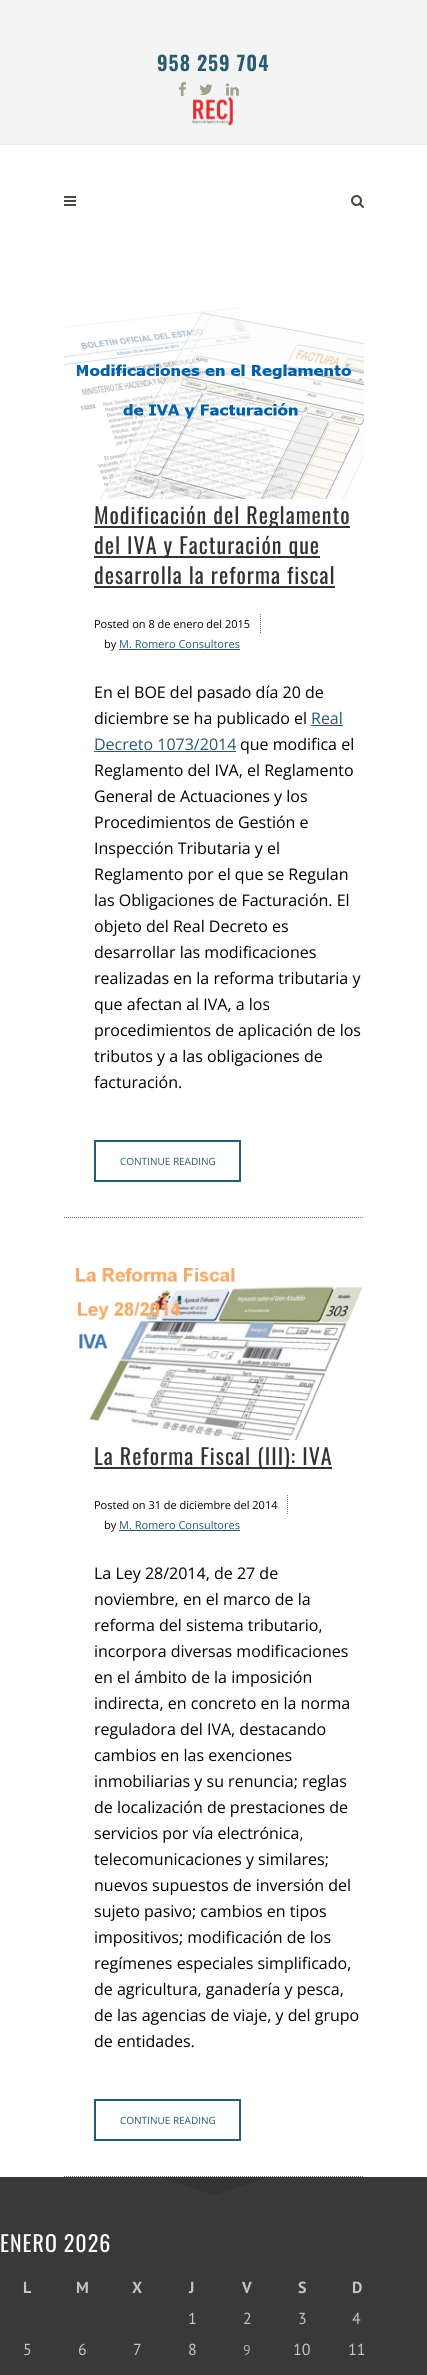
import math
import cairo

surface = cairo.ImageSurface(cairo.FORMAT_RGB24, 427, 2375)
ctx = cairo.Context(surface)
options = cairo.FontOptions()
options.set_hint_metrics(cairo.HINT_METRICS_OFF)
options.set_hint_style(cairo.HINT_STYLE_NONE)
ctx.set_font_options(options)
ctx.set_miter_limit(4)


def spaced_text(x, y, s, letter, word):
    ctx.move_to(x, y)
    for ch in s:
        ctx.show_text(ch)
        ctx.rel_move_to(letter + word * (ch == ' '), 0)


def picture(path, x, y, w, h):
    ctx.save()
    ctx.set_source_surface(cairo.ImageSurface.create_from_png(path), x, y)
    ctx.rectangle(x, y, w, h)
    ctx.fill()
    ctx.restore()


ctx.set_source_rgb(1, 1, 1)
ctx.paint()
ctx.set_source_rgb(0.957, 0.957, 0.957)
ctx.rectangle(0, 0, 427, 144)
ctx.fill()
ctx.set_source_rgb(0.929, 0.929, 0.929)
ctx.rectangle(0, 144, 427, 1)
ctx.fill()
ctx.select_font_face("Oswald SemiBold")
ctx.set_font_size(20)
ctx.set_source_rgb(0.157, 0.353, 0.439)
spaced_text(157, 71, "958 259 704", 1, 0)
picture("img1.png", 178, 82, 8, 15)
picture("img2.png", 199, 84, 14, 11)
picture("img3.png", 226, 83, 13, 13)
picture("img4.png", 192, 96, 41, 30)
picture("img5.png", 64, 196, 12, 10)
picture("img6.png", 351, 195, 13, 13)
ctx.new_path()
ctx.move_to(64, 1217.5)
ctx.line_to(364, 1217.5)
ctx.set_source_rgb(0.455, 0.475, 0.482)
ctx.set_line_width(1)
ctx.set_dash([1, 1])
ctx.stroke()
picture("img7.png", 64, 307, 300, 192)
ctx.set_source_rgb(0.2, 0.2, 0.2)
ctx.rectangle(94, 526, 256, 2)
ctx.fill()
ctx.select_font_face("Oswald")
ctx.set_font_size(22)
spaced_text(94, 524, "Modificación del Reglamento", 1, 0)
ctx.rectangle(94, 556, 226, 2)
ctx.fill()
spaced_text(94, 554, "del IVA y Facturación que", 1, 0)
spaced_text(94, 584, "desarrolla la reforma fiscal", 1, 0)
ctx.rectangle(94, 586, 241, 2)
ctx.fill()
ctx.new_path()
ctx.move_to(260.5, 614)
ctx.line_to(260.5, 634)
ctx.set_source_rgb(0.455, 0.475, 0.482)
ctx.stroke()
ctx.select_font_face("Open Sans")
ctx.set_font_size(11)
ctx.set_source_rgb(0, 0, 0)
ctx.move_to(94, 628)
ctx.show_text("Posted on 8 de enero del 2015")
ctx.move_to(104, 648)
ctx.show_text("by")
ctx.set_source_rgb(0.157, 0.353, 0.439)
ctx.move_to(119, 648)
ctx.show_text("M. Romero Consultores")
ctx.rectangle(119, 649, 121, 1)
ctx.fill()
ctx.set_font_size(16)
ctx.set_source_rgb(0, 0, 0)
ctx.move_to(94, 698)
ctx.show_text("En el BOE del pasado día 20 de")
ctx.move_to(94, 724)
ctx.show_text("diciembre se ha publicado el")
ctx.set_source_rgb(0.157, 0.353, 0.439)
ctx.move_to(311, 724)
ctx.show_text("Real")
ctx.rectangle(311, 725, 32, 1)
ctx.fill()
ctx.move_to(94, 750)
ctx.show_text("Decreto 1073/2014")
ctx.rectangle(94, 751, 142, 1)
ctx.fill()
ctx.set_source_rgb(0, 0, 0)
ctx.move_to(240, 750)
ctx.show_text("que modifica el")
ctx.move_to(94, 776)
ctx.show_text("Reglamento del IVA, el Reglamento")
ctx.move_to(94, 802)
ctx.show_text("General de Actuaciones y los")
ctx.move_to(94, 828)
ctx.show_text("Procedimientos de Gestión e")
ctx.move_to(94, 854)
ctx.show_text("Inspección Tributaria y el")
ctx.move_to(94, 880)
ctx.show_text("Reglamento por el que se Regulan")
ctx.move_to(94, 906)
ctx.show_text("las Obligaciones de Facturación. El")
ctx.move_to(94, 932)
ctx.show_text("objeto del Real Decreto es")
ctx.move_to(94, 958)
ctx.show_text("desarrollar las modificaciones")
ctx.move_to(94, 984)
ctx.show_text("realizadas en la reforma tributaria y")
ctx.move_to(94, 1010)
ctx.show_text("que afectan al IVA, a los")
ctx.move_to(94, 1036)
ctx.show_text("procedimientos de aplicación de los")
ctx.move_to(94, 1062)
ctx.show_text("tributos y a las obligaciones de")
ctx.move_to(94, 1088)
ctx.show_text("facturación.")
ctx.rectangle(95, 1141, 145, 40)
ctx.set_source_rgb(0.157, 0.353, 0.439)
ctx.set_line_width(2)
ctx.set_dash([])
ctx.stroke()
ctx.set_font_size(10)
ctx.move_to(120, 1165)
ctx.show_text("CONTINUE READING")
ctx.new_path()
ctx.move_to(64, 2176.5)
ctx.line_to(364, 2176.5)
ctx.set_source_rgb(0.455, 0.475, 0.482)
ctx.set_line_width(1)
ctx.set_dash([1, 1])
ctx.stroke()
picture("img8.png", 75, 1267, 288, 173)
ctx.set_source_rgb(0.2, 0.2, 0.2)
ctx.rectangle(94, 1467, 238, 2)
ctx.fill()
ctx.select_font_face("Oswald")
ctx.set_font_size(22)
spaced_text(94, 1465, "La Reforma Fiscal (III): IVA", 1, 0)
ctx.new_path()
ctx.move_to(287.5, 1495)
ctx.line_to(287.5, 1515)
ctx.set_source_rgb(0.455, 0.475, 0.482)
ctx.stroke()
ctx.select_font_face("Open Sans")
ctx.set_font_size(11)
ctx.set_source_rgb(0, 0, 0)
ctx.move_to(94, 1509)
ctx.show_text("Posted on 31 de diciembre del 2014")
ctx.move_to(104, 1529)
ctx.show_text("by")
ctx.set_source_rgb(0.157, 0.353, 0.439)
ctx.move_to(119, 1529)
ctx.show_text("M. Romero Consultores")
ctx.rectangle(119, 1530, 121, 1)
ctx.fill()
ctx.set_font_size(16)
ctx.set_source_rgb(0, 0, 0)
ctx.move_to(94, 1579)
ctx.show_text("La Ley 28/2014, de 27 de")
ctx.move_to(94, 1605)
ctx.show_text("noviembre, en el marco de la")
ctx.move_to(94, 1631)
ctx.show_text("reforma del sistema tributario,")
ctx.move_to(94, 1657)
ctx.show_text("incorpora diversas modificaciones")
ctx.move_to(94, 1683)
ctx.show_text("en el ámbito de la imposición")
ctx.move_to(94, 1709)
ctx.show_text("indirecta, en concreto en la norma")
ctx.move_to(94, 1735)
ctx.show_text("reguladora del IVA, destacando")
ctx.move_to(94, 1761)
ctx.show_text("cambios en las exenciones")
ctx.move_to(94, 1787)
ctx.show_text("inmobiliarias y su renuncia; reglas")
ctx.move_to(94, 1813)
ctx.show_text("de localización de prestaciones de")
ctx.move_to(94, 1839)
ctx.show_text("servicios por vía electrónica,")
ctx.move_to(94, 1865)
ctx.show_text("telecomunicaciones y similares;")
ctx.move_to(94, 1891)
ctx.show_text("nuevos supuestos de inversión del")
ctx.move_to(94, 1917)
ctx.show_text("sujeto pasivo; cambios en tipos")
ctx.move_to(94, 1943)
ctx.show_text("impositivos; modificación de los")
ctx.move_to(94, 1969)
ctx.show_text("regímenes especiales simplificado,")
ctx.move_to(94, 1995)
ctx.show_text("de agricultura, ganadería y pesca,")
ctx.move_to(94, 2021)
ctx.show_text("de las agencias de viaje, y del grupo")
ctx.move_to(94, 2047)
ctx.show_text("de entidades.")
ctx.rectangle(95, 2100, 145, 40)
ctx.set_source_rgb(0.157, 0.353, 0.439)
ctx.set_line_width(2)
ctx.set_dash([])
ctx.stroke()
ctx.set_font_size(10)
ctx.move_to(120, 2124)
ctx.show_text("CONTINUE READING")
ctx.set_source_rgb(0.224, 0.224, 0.224)
ctx.rectangle(0, 2177, 427, 198)
ctx.fill()
ctx.set_source_rgb(0.2, 0.2, 0.2)
ctx.new_path()
ctx.move_to(159, 2177)
ctx.line_to(269, 2177)
ctx.line_to(214, 2195)
ctx.close_path()
ctx.fill()
ctx.select_font_face("Oswald")
ctx.set_font_size(22)
ctx.set_source_rgb(1, 1, 1)
spaced_text(0, 2252, "ENERO 2026", 1, 0)
ctx.select_font_face("PT Sans", cairo.FONT_SLANT_NORMAL, cairo.FONT_WEIGHT_BOLD)
ctx.set_font_size(16)
ctx.set_source_rgb(0.776, 0.78, 0.725)
ctx.move_to(23, 2293)
ctx.show_text("L")
ctx.move_to(76, 2293)
ctx.show_text("M")
ctx.move_to(132, 2293)
ctx.show_text("X")
ctx.move_to(189, 2293)
ctx.show_text("J")
ctx.move_to(242, 2293)
ctx.show_text("V")
ctx.move_to(298, 2293)
ctx.show_text("S")
ctx.move_to(352, 2293)
ctx.show_text("D")
ctx.select_font_face("PT Sans")
ctx.move_to(188, 2324)
ctx.show_text("1")
ctx.move_to(243, 2324)
ctx.show_text("2")
ctx.move_to(298, 2324)
ctx.show_text("3")
ctx.move_to(352, 2324)
ctx.show_text("4")
ctx.move_to(23, 2355)
ctx.show_text("5")
ctx.move_to(78, 2355)
ctx.show_text("6")
ctx.move_to(133, 2355)
ctx.show_text("7")
ctx.move_to(188, 2355)
ctx.show_text("8")
ctx.set_font_size(14)
ctx.set_source_rgb(0.694, 0.698, 0.647)
ctx.move_to(243, 2355)
ctx.show_text("9")
ctx.set_font_size(16)
ctx.set_source_rgb(0.776, 0.78, 0.725)
ctx.move_to(293, 2355)
ctx.show_text("10")
ctx.move_to(348, 2355)
ctx.show_text("11")
surface.write_to_png("page.png")
